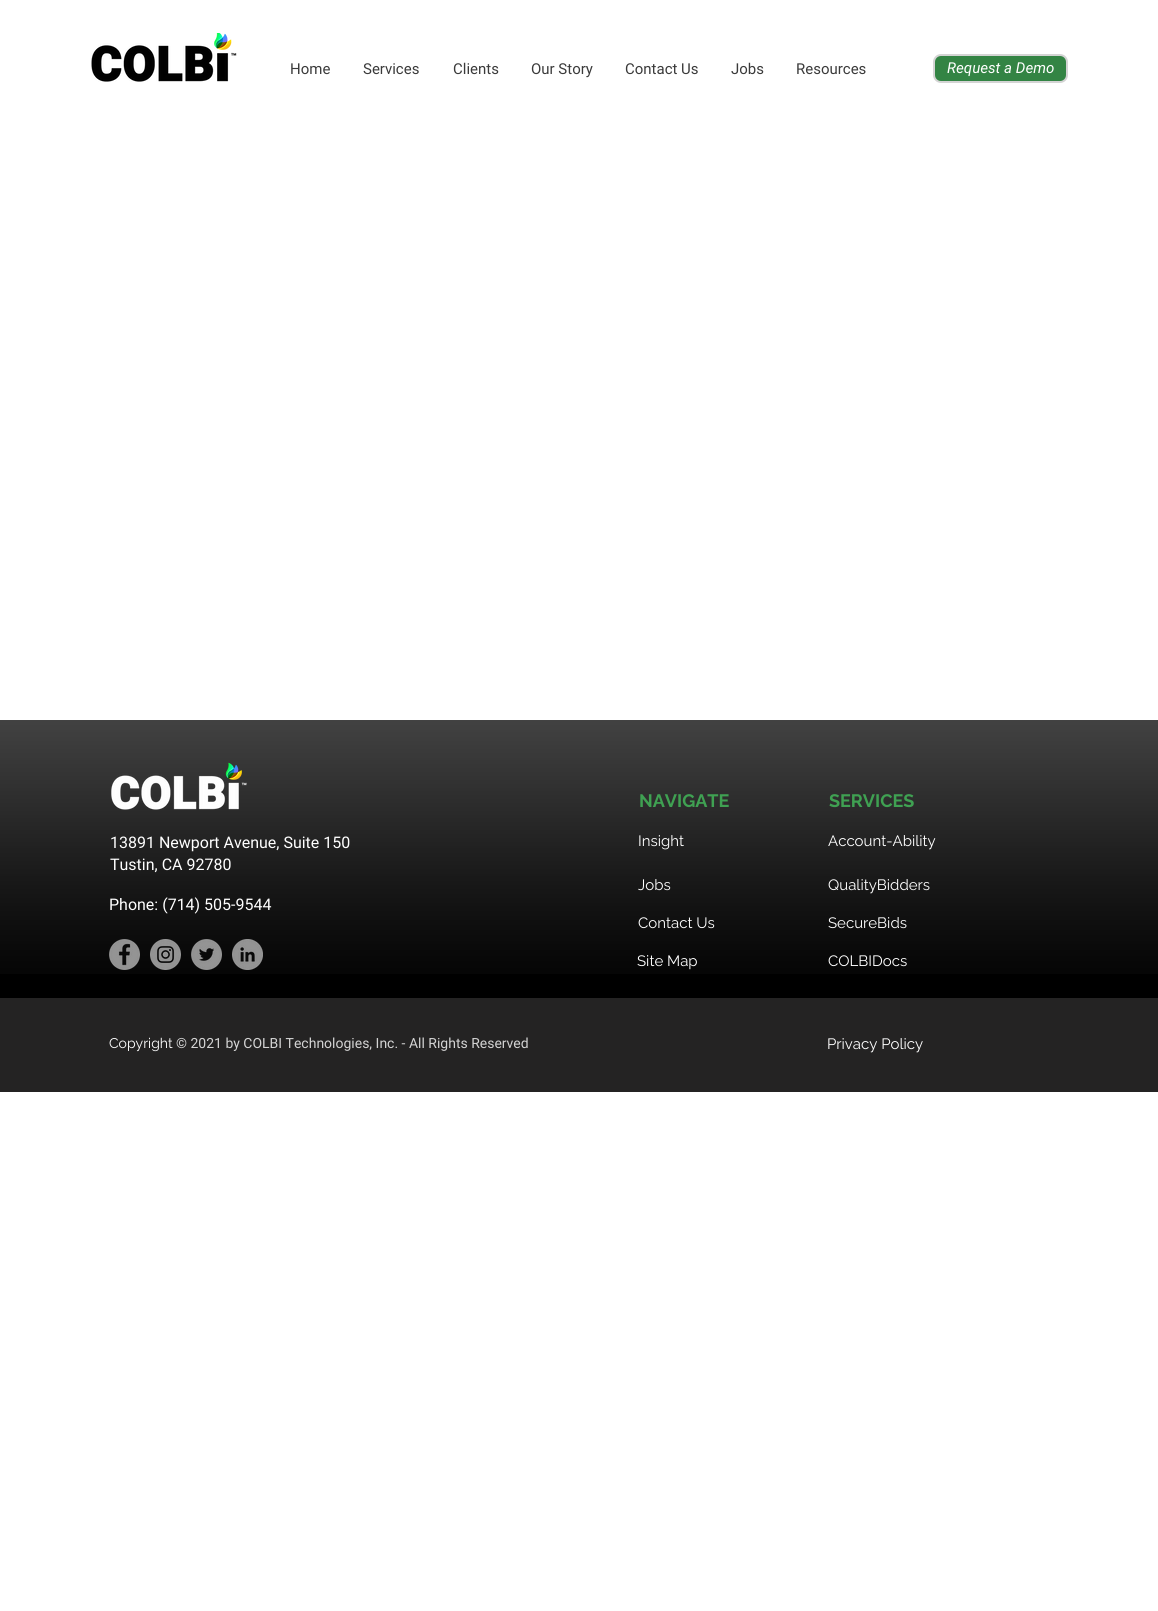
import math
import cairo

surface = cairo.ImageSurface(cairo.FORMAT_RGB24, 1158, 1611)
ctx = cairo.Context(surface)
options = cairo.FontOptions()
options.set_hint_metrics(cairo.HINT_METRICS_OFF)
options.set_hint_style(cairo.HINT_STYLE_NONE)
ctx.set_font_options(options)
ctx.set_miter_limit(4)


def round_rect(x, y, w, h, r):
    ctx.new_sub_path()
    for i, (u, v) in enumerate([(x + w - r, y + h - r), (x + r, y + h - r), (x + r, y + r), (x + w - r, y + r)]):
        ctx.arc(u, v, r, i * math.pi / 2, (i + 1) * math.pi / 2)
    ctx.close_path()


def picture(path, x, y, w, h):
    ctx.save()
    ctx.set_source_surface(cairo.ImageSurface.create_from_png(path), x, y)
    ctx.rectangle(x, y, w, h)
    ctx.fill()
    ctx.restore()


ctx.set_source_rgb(1, 1, 1)
ctx.paint()
picture("img1.png", 91, 33, 146, 49)
ctx.select_font_face("Roboto")
ctx.set_font_size(15)
ctx.set_source_rgb(0.227, 0.227, 0.227)
ctx.move_to(290, 74)
ctx.show_text("Home")
ctx.move_to(363, 74)
ctx.show_text("Services")
ctx.move_to(453, 74)
ctx.show_text("Clients")
ctx.move_to(531, 74)
ctx.show_text("Our Story")
ctx.move_to(625, 74)
ctx.show_text("Contact Us")
ctx.move_to(731, 74)
ctx.show_text("Jobs")
ctx.move_to(796, 74)
ctx.show_text("Resources")
ctx.set_source_rgb(0.2, 0.518, 0.267)
round_rect(934, 55, 133, 27, 7)
ctx.fill_preserve()
ctx.set_source_rgb(0.831, 0.831, 0.831)
ctx.stroke()
ctx.select_font_face("Roboto", cairo.FONT_SLANT_ITALIC)
ctx.set_source_rgb(1, 1, 1)
ctx.move_to(947, 73)
ctx.show_text("Request a Demo")
ctx.set_source_rgb(0, 0, 0)
ctx.rectangle(0, 720, 1158, 278)
ctx.fill()
picture("img2.png", 0, 720, 1158, 254)
picture("img3.png", 111, 762, 136, 48)
ctx.select_font_face("Raleway", cairo.FONT_SLANT_NORMAL, cairo.FONT_WEIGHT_BOLD)
ctx.set_font_size(18)
ctx.set_source_rgb(0.247, 0.631, 0.322)
ctx.move_to(639, 807)
ctx.show_text("NAVIGATE")
ctx.move_to(829, 807)
ctx.show_text("SERVICES")
ctx.select_font_face("Roboto")
ctx.set_font_size(16)
ctx.set_source_rgb(1, 1, 1)
ctx.move_to(110, 848)
ctx.show_text("13891 Newport Avenue, Suite 150")
ctx.move_to(110, 870)
ctx.show_text("Tustin, CA 92780")
ctx.select_font_face("Raleway")
ctx.set_font_size(15)
ctx.move_to(638, 846)
ctx.show_text("Insight")
ctx.move_to(828, 846)
ctx.show_text("Account-Ability")
ctx.move_to(638, 890)
ctx.show_text("Jobs")
ctx.move_to(828, 890)
ctx.show_text("QualityBidders")
ctx.select_font_face("Roboto")
ctx.set_font_size(16)
ctx.move_to(109, 910)
ctx.show_text("Phone: (714) 505-9544")
ctx.select_font_face("Raleway")
ctx.set_font_size(15)
ctx.move_to(638, 928)
ctx.show_text("Contact Us")
ctx.move_to(828, 928)
ctx.show_text("SecureBids")
picture("img4.png", 109, 939, 31, 31)
picture("img5.png", 150, 939, 31, 31)
picture("img6.png", 191, 939, 31, 31)
picture("img7.png", 232, 939, 31, 31)
ctx.move_to(637, 966)
ctx.show_text("Site Map")
ctx.move_to(828, 966)
ctx.show_text("COLBIDocs")
ctx.set_source_rgb(0.141, 0.137, 0.137)
ctx.rectangle(0, 998, 1158, 94)
ctx.fill()
ctx.set_font_size(14)
ctx.set_source_rgb(1, 1, 1)
ctx.move_to(109, 1048)
ctx.show_text("Copyright")
ctx.select_font_face("Roboto")
ctx.set_source_rgb(0.831, 0.831, 0.831)
ctx.move_to(176, 1048)
ctx.show_text("© 2021 by COLBI Technologies, Inc. - All Rights Reserved")
ctx.select_font_face("Raleway")
ctx.set_font_size(15)
ctx.set_source_rgb(1, 1, 1)
ctx.move_to(827, 1049)
ctx.show_text("Privacy Policy")
surface.write_to_png("page.png")
